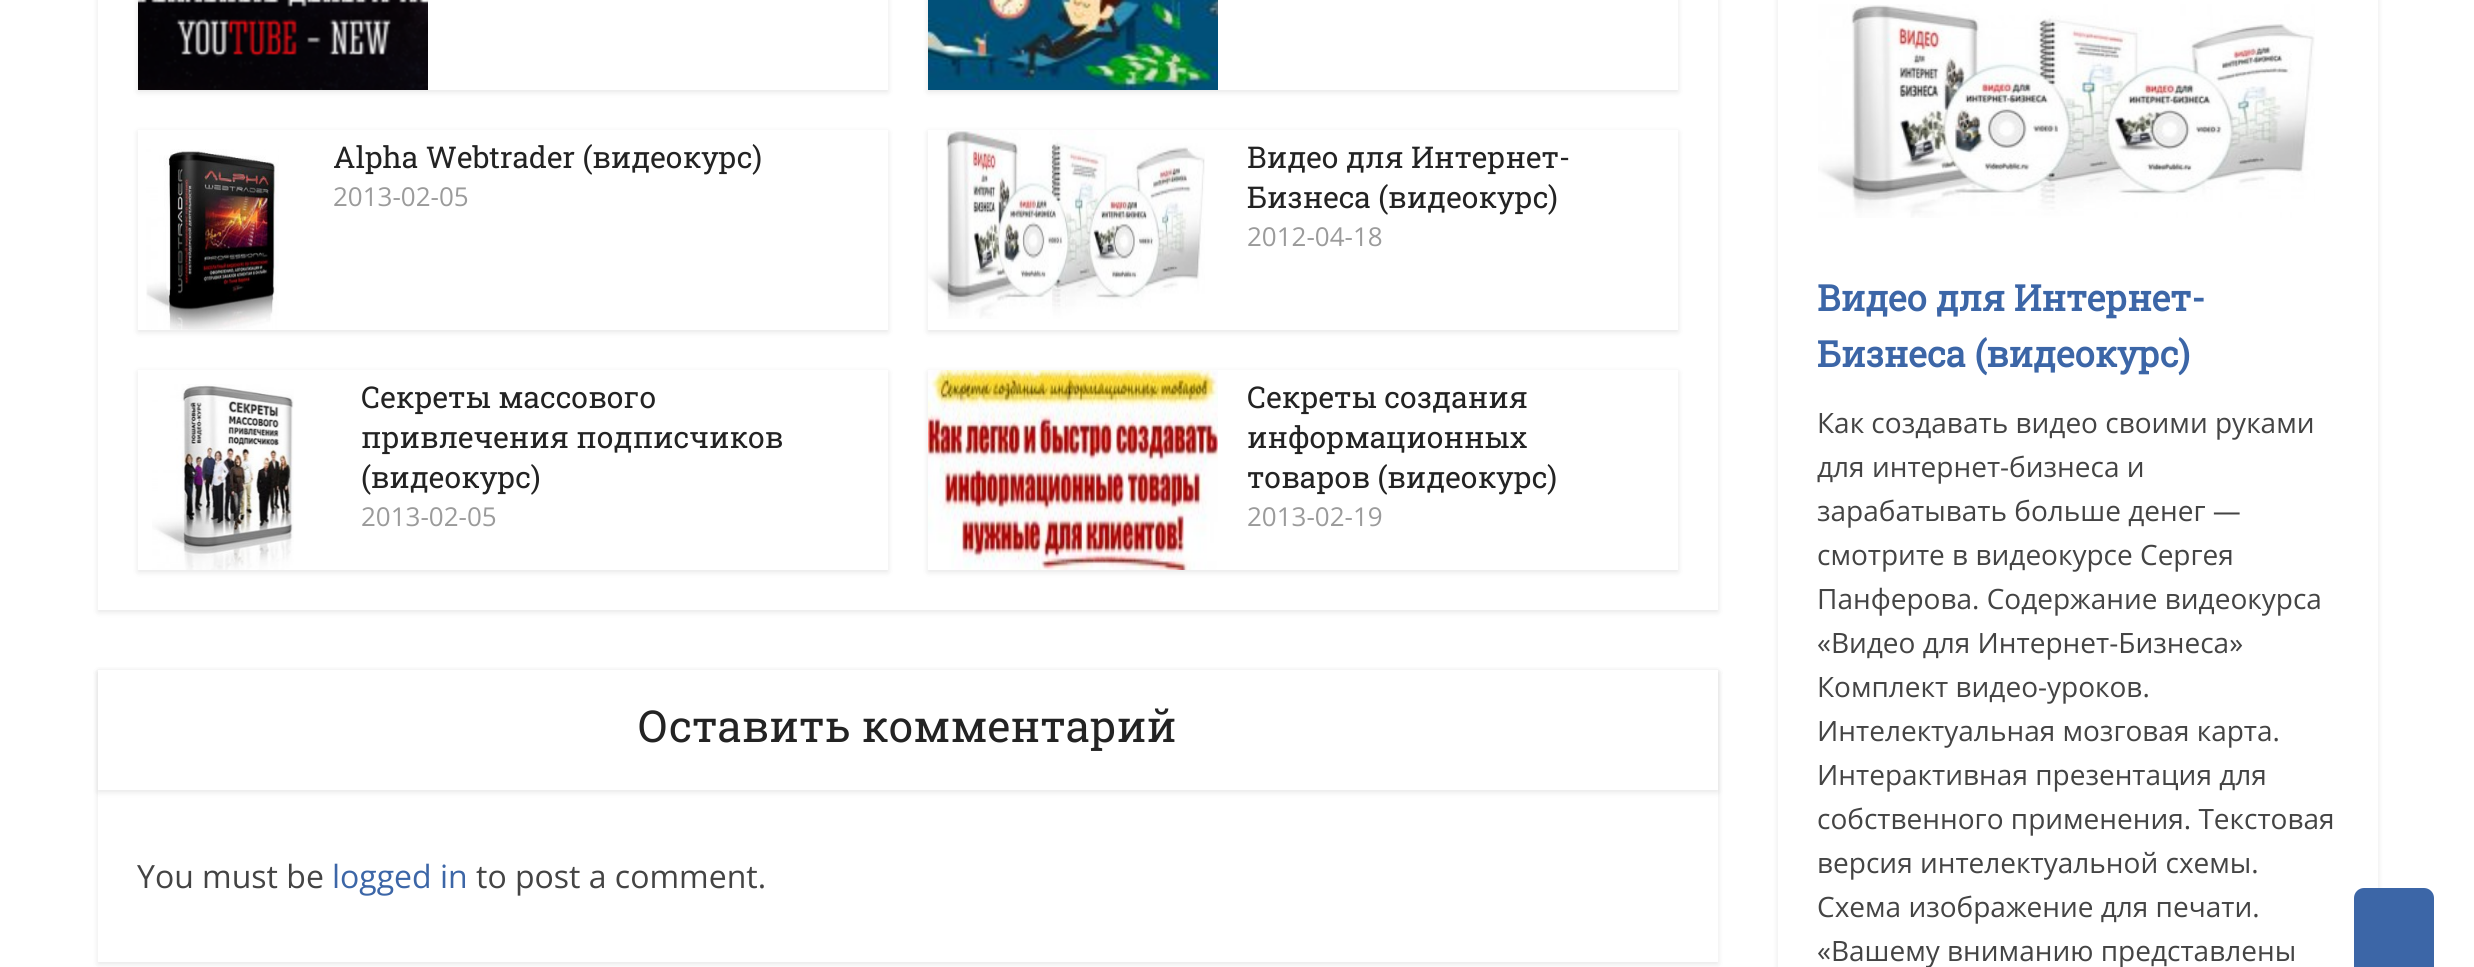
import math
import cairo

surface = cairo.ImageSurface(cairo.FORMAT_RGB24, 2474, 967)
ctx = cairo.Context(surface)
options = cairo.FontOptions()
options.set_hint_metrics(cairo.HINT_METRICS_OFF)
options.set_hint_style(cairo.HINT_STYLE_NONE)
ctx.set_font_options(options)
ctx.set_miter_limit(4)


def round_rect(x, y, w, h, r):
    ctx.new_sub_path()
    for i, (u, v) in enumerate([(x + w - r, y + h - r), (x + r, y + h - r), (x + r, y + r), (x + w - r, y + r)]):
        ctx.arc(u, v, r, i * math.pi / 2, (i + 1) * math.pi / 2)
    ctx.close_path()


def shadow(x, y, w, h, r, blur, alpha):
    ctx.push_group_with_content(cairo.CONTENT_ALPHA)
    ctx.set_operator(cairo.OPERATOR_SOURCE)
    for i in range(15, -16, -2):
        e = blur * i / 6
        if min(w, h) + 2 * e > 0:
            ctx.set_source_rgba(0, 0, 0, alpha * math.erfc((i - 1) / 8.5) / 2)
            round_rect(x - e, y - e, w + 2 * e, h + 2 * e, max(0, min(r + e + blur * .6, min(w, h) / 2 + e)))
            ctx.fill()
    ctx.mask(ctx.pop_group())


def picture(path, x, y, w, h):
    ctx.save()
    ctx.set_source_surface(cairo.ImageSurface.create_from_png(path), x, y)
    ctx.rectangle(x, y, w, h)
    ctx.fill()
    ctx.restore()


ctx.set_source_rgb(1, 1, 1)
ctx.paint()
ctx.save()
ctx.set_fill_rule(cairo.FILL_RULE_EVEN_ODD)
ctx.new_path()
ctx.move_to(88, 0)
ctx.line_to(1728, 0)
ctx.line_to(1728, 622)
ctx.line_to(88, 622)
ctx.close_path()
ctx.move_to(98, -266)
ctx.line_to(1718, -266)
ctx.line_to(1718, 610)
ctx.line_to(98, 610)
ctx.close_path()
ctx.clip()
ctx.set_source_rgb(0, 0, 0)
shadow(98, -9, 1620, 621, 0, 3, 0.1)
ctx.restore()
ctx.save()
ctx.set_fill_rule(cairo.FILL_RULE_EVEN_ODD)
ctx.new_path()
ctx.move_to(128, 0)
ctx.line_to(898, 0)
ctx.line_to(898, 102)
ctx.line_to(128, 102)
ctx.close_path()
ctx.move_to(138, -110)
ctx.line_to(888, -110)
ctx.line_to(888, 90)
ctx.line_to(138, 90)
ctx.close_path()
ctx.clip()
ctx.set_source_rgb(0, 0, 0)
shadow(138, -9, 750, 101, 0, 3, 0.1)
ctx.restore()
picture("img1.png", 138, 0, 290, 90)
ctx.save()
ctx.set_fill_rule(cairo.FILL_RULE_EVEN_ODD)
ctx.new_path()
ctx.move_to(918, 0)
ctx.line_to(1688, 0)
ctx.line_to(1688, 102)
ctx.line_to(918, 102)
ctx.close_path()
ctx.move_to(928, -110)
ctx.line_to(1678, -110)
ctx.line_to(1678, 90)
ctx.line_to(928, 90)
ctx.close_path()
ctx.clip()
ctx.set_source_rgb(0, 0, 0)
shadow(928, -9, 750, 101, 0, 3, 0.1)
ctx.restore()
picture("img2.png", 928, 0, 290, 90)
ctx.save()
ctx.set_fill_rule(cairo.FILL_RULE_EVEN_ODD)
ctx.new_path()
ctx.move_to(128, 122)
ctx.line_to(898, 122)
ctx.line_to(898, 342)
ctx.line_to(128, 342)
ctx.close_path()
ctx.move_to(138, 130)
ctx.line_to(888, 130)
ctx.line_to(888, 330)
ctx.line_to(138, 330)
ctx.close_path()
ctx.clip()
ctx.set_source_rgb(0, 0, 0)
shadow(138, 132, 750, 200, 0, 3, 0.1)
ctx.restore()
picture("img3.png", 146, 149, 133, 181)
ctx.select_font_face("Roboto Slab")
ctx.set_font_size(30)
ctx.set_source_rgb(0.137, 0.137, 0.137)
ctx.move_to(333, 168)
ctx.show_text("Alpha Webtrader (видеокурс)")
ctx.select_font_face("Open Sans")
ctx.set_font_size(26)
ctx.set_source_rgb(0.608, 0.608, 0.608)
ctx.move_to(333, 206)
ctx.show_text("2013-02-05")
ctx.save()
ctx.set_fill_rule(cairo.FILL_RULE_EVEN_ODD)
ctx.new_path()
ctx.move_to(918, 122)
ctx.line_to(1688, 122)
ctx.line_to(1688, 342)
ctx.line_to(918, 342)
ctx.close_path()
ctx.move_to(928, 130)
ctx.line_to(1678, 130)
ctx.line_to(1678, 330)
ctx.line_to(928, 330)
ctx.close_path()
ctx.clip()
ctx.set_source_rgb(0, 0, 0)
shadow(928, 132, 750, 200, 0, 3, 0.1)
ctx.restore()
picture("img4.png", 928, 130, 277, 189)
ctx.select_font_face("Roboto Slab")
ctx.set_font_size(30)
ctx.set_source_rgb(0.137, 0.137, 0.137)
ctx.move_to(1247, 168)
ctx.show_text("Видео для Интернет-")
ctx.move_to(1247, 208)
ctx.show_text("Бизнеса (видеокурс)")
ctx.select_font_face("Open Sans")
ctx.set_font_size(26)
ctx.set_source_rgb(0.608, 0.608, 0.608)
ctx.move_to(1247, 246)
ctx.show_text("2012-04-18")
ctx.save()
ctx.set_fill_rule(cairo.FILL_RULE_EVEN_ODD)
ctx.new_path()
ctx.move_to(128, 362)
ctx.line_to(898, 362)
ctx.line_to(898, 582)
ctx.line_to(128, 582)
ctx.close_path()
ctx.move_to(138, 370)
ctx.line_to(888, 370)
ctx.line_to(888, 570)
ctx.line_to(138, 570)
ctx.close_path()
ctx.clip()
ctx.set_source_rgb(0, 0, 0)
shadow(138, 372, 750, 200, 0, 3, 0.1)
ctx.restore()
picture("img5.png", 152, 384, 142, 186)
ctx.select_font_face("Roboto Slab")
ctx.set_font_size(30)
ctx.set_source_rgb(0.137, 0.137, 0.137)
ctx.move_to(361, 408)
ctx.show_text("Секреты массового")
ctx.move_to(361, 448)
ctx.show_text("привлечения подписчиков")
ctx.move_to(361, 488)
ctx.show_text("(видеокурс)")
ctx.select_font_face("Open Sans")
ctx.set_font_size(26)
ctx.set_source_rgb(0.608, 0.608, 0.608)
ctx.move_to(361, 526)
ctx.show_text("2013-02-05")
ctx.save()
ctx.set_fill_rule(cairo.FILL_RULE_EVEN_ODD)
ctx.new_path()
ctx.move_to(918, 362)
ctx.line_to(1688, 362)
ctx.line_to(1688, 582)
ctx.line_to(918, 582)
ctx.close_path()
ctx.move_to(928, 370)
ctx.line_to(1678, 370)
ctx.line_to(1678, 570)
ctx.line_to(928, 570)
ctx.close_path()
ctx.clip()
ctx.set_source_rgb(0, 0, 0)
shadow(928, 372, 750, 200, 0, 3, 0.1)
ctx.restore()
picture("img6.png", 928, 370, 290, 200)
ctx.select_font_face("Roboto Slab")
ctx.set_font_size(30)
ctx.set_source_rgb(0.137, 0.137, 0.137)
ctx.move_to(1247, 408)
ctx.show_text("Секреты создания")
ctx.move_to(1247, 448)
ctx.show_text("информационных")
ctx.move_to(1247, 488)
ctx.show_text("товаров (видеокурс)")
ctx.select_font_face("Open Sans")
ctx.set_font_size(26)
ctx.set_source_rgb(0.608, 0.608, 0.608)
ctx.move_to(1247, 526)
ctx.show_text("2013-02-19")
ctx.save()
ctx.set_fill_rule(cairo.FILL_RULE_EVEN_ODD)
ctx.new_path()
ctx.move_to(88, 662)
ctx.line_to(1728, 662)
ctx.line_to(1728, 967)
ctx.line_to(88, 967)
ctx.close_path()
ctx.move_to(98, 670)
ctx.line_to(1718, 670)
ctx.line_to(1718, 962)
ctx.line_to(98, 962)
ctx.close_path()
ctx.clip()
ctx.set_source_rgb(0, 0, 0)
shadow(98, 672, 1620, 292, 0, 3, 0.1)
ctx.restore()
ctx.save()
ctx.set_fill_rule(cairo.FILL_RULE_EVEN_ODD)
ctx.new_path()
ctx.move_to(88, 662)
ctx.line_to(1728, 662)
ctx.line_to(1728, 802)
ctx.line_to(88, 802)
ctx.close_path()
ctx.move_to(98, 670)
ctx.line_to(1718, 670)
ctx.line_to(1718, 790)
ctx.line_to(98, 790)
ctx.close_path()
ctx.clip()
ctx.set_source_rgb(0, 0, 0)
shadow(98, 672, 1620, 120, 0, 3, 0.1)
ctx.restore()
ctx.select_font_face("Roboto Slab")
ctx.set_font_size(44)
ctx.set_source_rgb(0.137, 0.137, 0.137)
ctx.move_to(638, 742)
ctx.show_text("Оставить комментарий")
ctx.select_font_face("Open Sans")
ctx.set_font_size(32)
ctx.set_source_rgb(0.267, 0.267, 0.267)
ctx.move_to(137, 888)
ctx.show_text("You must be")
ctx.set_source_rgb(0.235, 0.4, 0.655)
ctx.move_to(332, 888)
ctx.show_text("logged in")
ctx.set_source_rgb(0.267, 0.267, 0.267)
ctx.move_to(476, 888)
ctx.show_text("to post a comment.")
ctx.save()
ctx.set_fill_rule(cairo.FILL_RULE_EVEN_ODD)
ctx.new_path()
ctx.move_to(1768, 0)
ctx.line_to(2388, 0)
ctx.line_to(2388, 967)
ctx.line_to(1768, 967)
ctx.close_path()
ctx.move_to(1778, -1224)
ctx.line_to(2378, -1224)
ctx.line_to(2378, 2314)
ctx.line_to(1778, 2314)
ctx.close_path()
ctx.clip()
ctx.set_source_rgb(0, 0, 0)
shadow(1778, -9, 600, 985, 0, 3, 0.1)
ctx.restore()
picture("img7.png", 1818, 4, 497, 214)
ctx.select_font_face("Roboto Slab", cairo.FONT_SLANT_NORMAL, cairo.FONT_WEIGHT_BOLD)
ctx.set_font_size(36)
ctx.set_source_rgb(0.235, 0.4, 0.655)
ctx.move_to(1817, 311)
ctx.show_text("Видео для Интернет-")
ctx.move_to(1817, 367)
ctx.show_text("Бизнеса (видеокурс)")
ctx.select_font_face("Open Sans")
ctx.set_font_size(28)
ctx.set_source_rgb(0.267, 0.267, 0.267)
ctx.move_to(1817, 433)
ctx.show_text("Как создавать видео своими руками")
ctx.move_to(1817, 477)
ctx.show_text("для интернет-бизнеса и")
ctx.move_to(1817, 521)
ctx.show_text("зарабатывать больше денег —")
ctx.move_to(1817, 565)
ctx.show_text("смотрите в видеокурсе Сергея")
ctx.move_to(1817, 609)
ctx.show_text("Панферова. Содержание видеокурса")
ctx.move_to(1817, 653)
ctx.show_text("«Видео для Интернет-Бизнеса»")
ctx.move_to(1817, 697)
ctx.show_text("Комплект видео-уроков.")
ctx.move_to(1817, 741)
ctx.show_text("Интелектуальная мозговая карта.")
ctx.move_to(1817, 785)
ctx.show_text("Интерактивная презентация для")
ctx.move_to(1817, 829)
ctx.show_text("собственного применения. Текстовая")
ctx.move_to(1817, 873)
ctx.show_text("версия интелектуальной схемы.")
ctx.move_to(1817, 917)
ctx.show_text("Схема изображение для печати.")
ctx.move_to(1817, 961)
ctx.show_text("«Вашему вниманию представлены")
ctx.set_source_rgb(0.235, 0.4, 0.655)
ctx.new_path()
ctx.move_to(2364, 888)
ctx.line_to(2424, 888)
ctx.curve_to(2429.5, 888, 2434, 892.5, 2434, 898)
ctx.line_to(2434, 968)
ctx.line_to(2354, 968)
ctx.line_to(2354, 898)
ctx.curve_to(2354, 892.5, 2358.5, 888, 2364, 888)
ctx.close_path()
ctx.fill()
surface.write_to_png("page.png")
